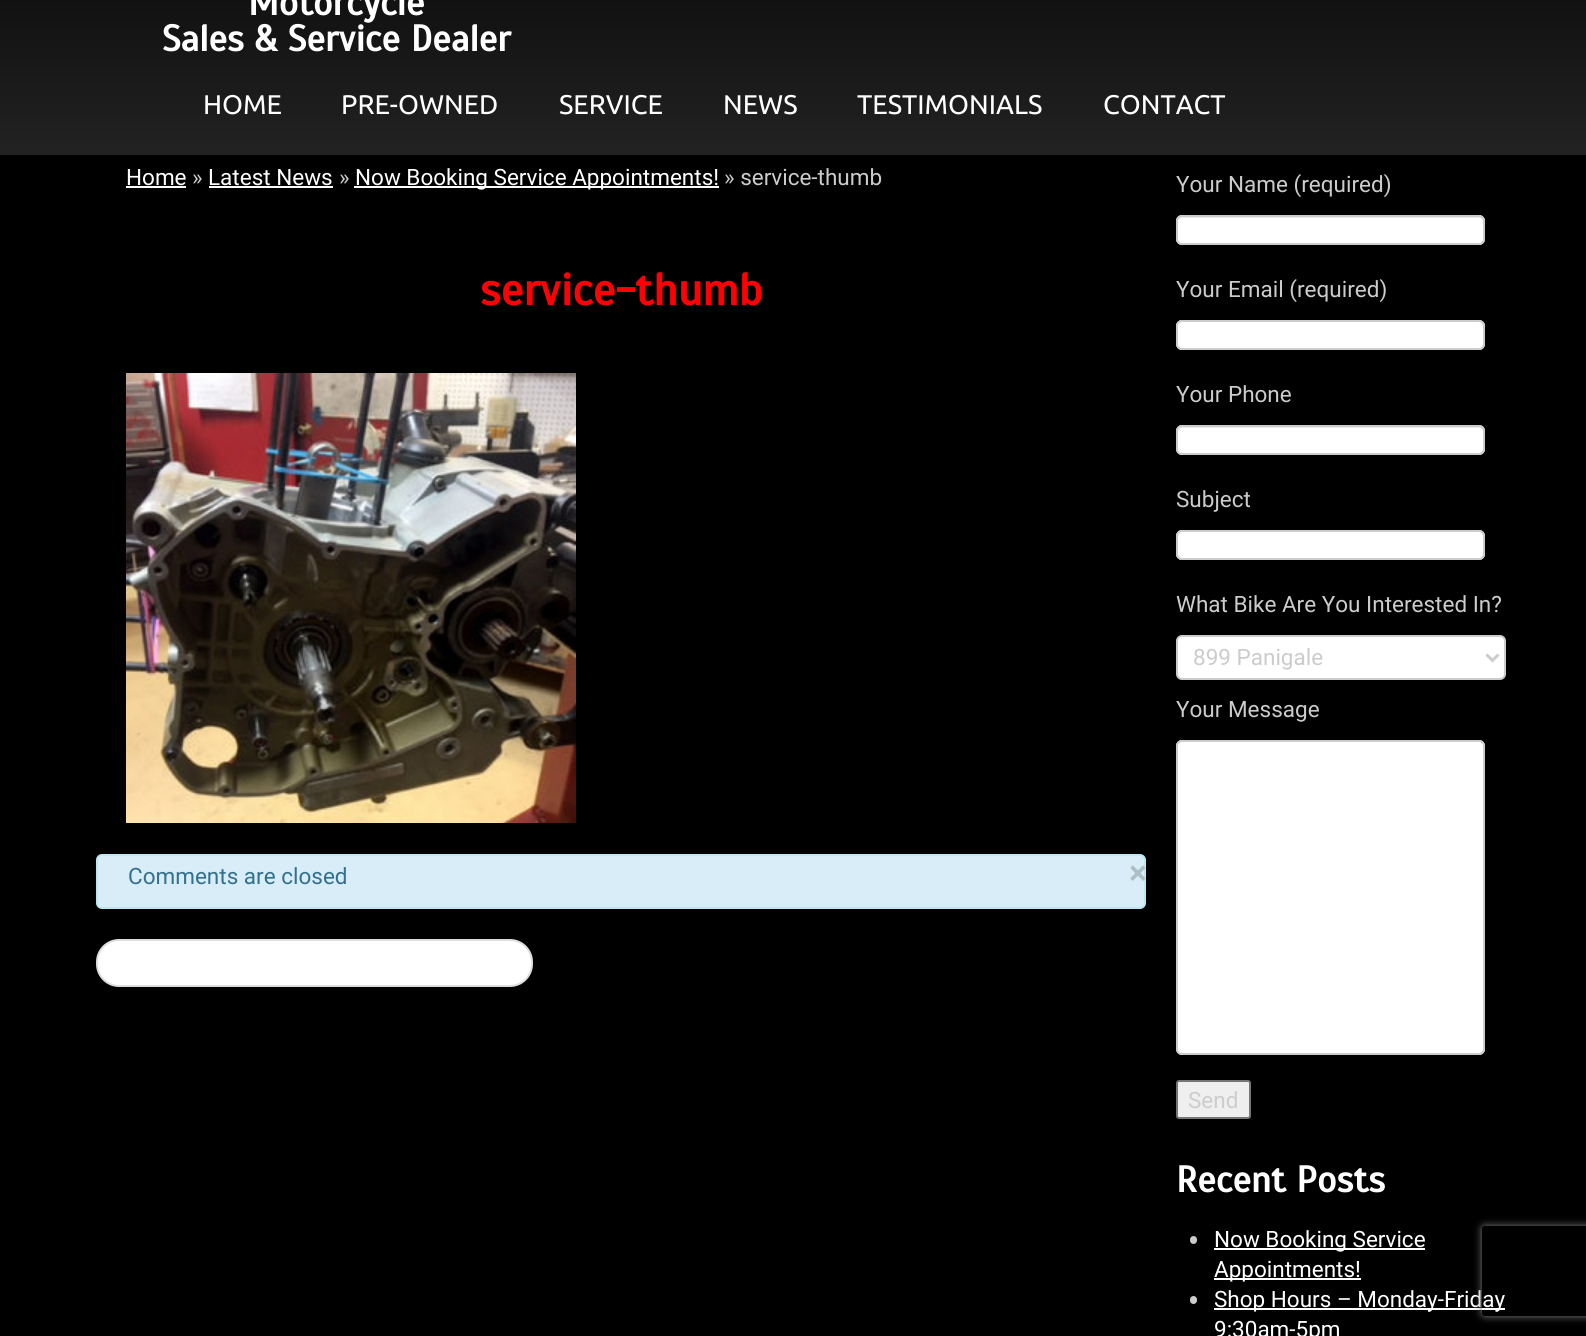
import math
import cairo

surface = cairo.ImageSurface(cairo.FORMAT_RGB24, 1586, 1336)
ctx = cairo.Context(surface)
options = cairo.FontOptions()
options.set_hint_metrics(cairo.HINT_METRICS_OFF)
options.set_hint_style(cairo.HINT_STYLE_NONE)
ctx.set_font_options(options)
ctx.set_miter_limit(4)


def round_rect(x, y, w, h, r):
    ctx.new_sub_path()
    for i, (u, v) in enumerate([(x + w - r, y + h - r), (x + r, y + h - r), (x + r, y + r), (x + w - r, y + r)]):
        ctx.arc(u, v, r, i * math.pi / 2, (i + 1) * math.pi / 2)
    ctx.close_path()


def shadow(x, y, w, h, r, blur, alpha):
    ctx.push_group_with_content(cairo.CONTENT_ALPHA)
    ctx.set_operator(cairo.OPERATOR_SOURCE)
    for i in range(15, -16, -2):
        e = blur * i / 6
        if min(w, h) + 2 * e > 0:
            ctx.set_source_rgba(0, 0, 0, alpha * math.erfc((i - 1) / 8.5) / 2)
            round_rect(x - e, y - e, w + 2 * e, h + 2 * e, max(0, min(r + e + blur * .6, min(w, h) / 2 + e)))
            ctx.fill()
    ctx.mask(ctx.pop_group())


def picture(path, x, y, w, h):
    ctx.save()
    ctx.set_source_surface(cairo.ImageSurface.create_from_png(path), x, y)
    ctx.rectangle(x, y, w, h)
    ctx.fill()
    ctx.restore()


ctx.set_source_rgb(0, 0, 0)
ctx.paint()
gradient = cairo.LinearGradient(794, -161, 794, 155)
gradient.add_color_stop_rgba(0, 0, 0, 0, 1)
gradient.add_color_stop_rgba(1, 0.133, 0.133, 0.133, 1)
ctx.set_source(gradient)
ctx.rectangle(0, 0, 1586, 155)
ctx.fill()
ctx.select_font_face("Scada", cairo.FONT_SLANT_NORMAL, cairo.FONT_WEIGHT_BOLD)
ctx.set_font_size(36.75)
ctx.set_source_rgb(1, 1, 1)
ctx.move_to(248, 15)
ctx.show_text("Motorcycle")
ctx.move_to(162, 51)
ctx.show_text("Sales & Service Dealer")
ctx.select_font_face("Ubuntu")
ctx.set_font_size(27)
ctx.move_to(203, 114)
ctx.show_text("HOME")
ctx.move_to(341, 114)
ctx.show_text("PRE-OWNED")
ctx.move_to(559, 114)
ctx.show_text("SERVICE")
ctx.move_to(723, 114)
ctx.show_text("NEWS")
ctx.move_to(857, 114)
ctx.show_text("TESTIMONIALS")
ctx.move_to(1103, 114)
ctx.show_text("CONTACT")
ctx.select_font_face("Roboto")
ctx.set_font_size(22.5)
ctx.move_to(126, 185)
ctx.show_text("Home")
ctx.rectangle(126, 186, 60, 2)
ctx.fill()
ctx.set_source_rgb(0.8, 0.8, 0.8)
ctx.move_to(192, 185)
ctx.show_text("»")
ctx.set_source_rgb(1, 1, 1)
ctx.move_to(208, 185)
ctx.show_text("Latest News")
ctx.rectangle(209, 186, 124, 2)
ctx.fill()
ctx.set_source_rgb(0.8, 0.8, 0.8)
ctx.move_to(339, 185)
ctx.show_text("»")
ctx.set_source_rgb(1, 1, 1)
ctx.rectangle(354, 186, 365, 2)
ctx.fill()
ctx.move_to(355, 185)
ctx.show_text("Now Booking Service Appointments!")
ctx.set_source_rgb(0.8, 0.8, 0.8)
ctx.move_to(724, 185)
ctx.show_text("» service-thumb")
ctx.select_font_face("Scada", cairo.FONT_SLANT_NORMAL, cairo.FONT_WEIGHT_BOLD)
ctx.set_font_size(45)
ctx.set_source_rgb(1, 0, 0.016)
ctx.move_to(480, 305)
ctx.show_text("service-thumb")
picture("img1.png", 126, 373, 450, 450)
ctx.set_source_rgb(0.851, 0.929, 0.969)
round_rect(97, 855, 1048, 53, 5)
ctx.fill_preserve()
ctx.set_source_rgb(0.737, 0.91, 0.945)
ctx.stroke()
ctx.select_font_face("Roboto")
ctx.set_font_size(22.5)
ctx.set_source_rgb(0.192, 0.439, 0.561)
ctx.move_to(128, 884)
ctx.show_text("Comments are closed")
ctx.select_font_face("Roboto", cairo.FONT_SLANT_NORMAL, cairo.FONT_WEIGHT_BOLD)
ctx.set_font_size(32)
ctx.set_source_rgb(0.678, 0.745, 0.773)
ctx.move_to(1129, 884)
ctx.show_text("×")
ctx.set_source_rgb(1, 1, 1)
round_rect(97, 940, 435, 46, 22)
ctx.fill_preserve()
ctx.set_source_rgb(0.867, 0.867, 0.867)
ctx.stroke()
ctx.select_font_face("Roboto")
ctx.set_font_size(22.5)
ctx.set_source_rgb(0.8, 0.8, 0.8)
ctx.move_to(1176, 192)
ctx.show_text("Your Name (required)")
ctx.set_source_rgb(1, 1, 1)
round_rect(1176, 215, 309, 30, 6)
ctx.fill()
ctx.set_source_rgb(0.925, 0.925, 0.925)
ctx.new_path()
ctx.move_to(1182, 218)
ctx.line_to(1479, 218)
ctx.curve_to(1481, 218, 1484, 220, 1484, 222)
ctx.curve_to(1484, 219, 1482, 216, 1479, 216)
ctx.line_to(1183, 216)
ctx.curve_to(1180, 216, 1178, 219, 1178, 222)
ctx.curve_to(1178, 220, 1180, 218, 1182, 218)
ctx.close_path()
ctx.fill()
round_rect(1177, 216, 307, 28, 5)
ctx.set_source_rgb(0.8, 0.8, 0.8)
ctx.stroke()
ctx.move_to(1176, 297)
ctx.show_text("Your Email (required)")
ctx.set_source_rgb(1, 1, 1)
round_rect(1176, 320, 309, 30, 6)
ctx.fill()
ctx.set_source_rgb(0.925, 0.925, 0.925)
ctx.new_path()
ctx.move_to(1182, 322)
ctx.line_to(1479, 322)
ctx.curve_to(1481, 322, 1484, 325, 1484, 327)
ctx.curve_to(1484, 324, 1482, 321, 1479, 321)
ctx.line_to(1183, 321)
ctx.curve_to(1180, 321, 1178, 324, 1178, 327)
ctx.curve_to(1178, 325, 1180, 322, 1182, 322)
ctx.close_path()
ctx.fill()
round_rect(1177, 321, 307, 28, 5)
ctx.set_source_rgb(0.8, 0.8, 0.8)
ctx.stroke()
ctx.move_to(1176, 402)
ctx.show_text("Your Phone")
ctx.set_source_rgb(1, 1, 1)
round_rect(1176, 425, 309, 30, 6)
ctx.fill()
ctx.set_source_rgb(0.925, 0.925, 0.925)
ctx.new_path()
ctx.move_to(1182, 428)
ctx.line_to(1479, 428)
ctx.curve_to(1481, 428, 1484, 430, 1484, 432)
ctx.curve_to(1484, 429, 1482, 426, 1479, 426)
ctx.line_to(1183, 426)
ctx.curve_to(1180, 426, 1178, 429, 1178, 432)
ctx.curve_to(1178, 430, 1180, 428, 1182, 428)
ctx.close_path()
ctx.fill()
round_rect(1177, 426, 307, 28, 5)
ctx.set_source_rgb(0.8, 0.8, 0.8)
ctx.stroke()
ctx.move_to(1176, 507)
ctx.show_text("Subject")
ctx.set_source_rgb(1, 1, 1)
round_rect(1176, 530, 309, 30, 6)
ctx.fill()
ctx.set_source_rgb(0.925, 0.925, 0.925)
ctx.new_path()
ctx.move_to(1182, 532)
ctx.line_to(1479, 532)
ctx.curve_to(1481, 532, 1484, 535, 1484, 537)
ctx.curve_to(1484, 534, 1482, 531, 1479, 531)
ctx.line_to(1183, 531)
ctx.curve_to(1180, 531, 1178, 534, 1178, 537)
ctx.curve_to(1178, 535, 1180, 532, 1182, 532)
ctx.close_path()
ctx.fill()
round_rect(1177, 531, 307, 28, 5)
ctx.set_source_rgb(0.8, 0.8, 0.8)
ctx.stroke()
ctx.move_to(1176, 612)
ctx.show_text("What Bike Are You Interested In?")
ctx.set_source_rgb(1, 1, 1)
round_rect(1177, 636, 328, 43, 5)
ctx.fill_preserve()
ctx.set_source_rgb(0.8, 0.8, 0.8)
ctx.stroke()
ctx.new_path()
ctx.move_to(1486.5, 654.5)
ctx.line_to(1492.5, 660.5)
ctx.line_to(1498.5, 654.5)
ctx.set_line_width(3)
ctx.stroke()
ctx.move_to(1193, 665)
ctx.show_text("899 Panigale")
ctx.move_to(1176, 717)
ctx.show_text("Your Message")
ctx.set_source_rgb(1, 1, 1)
round_rect(1176, 740, 309, 315, 6)
ctx.fill()
ctx.set_source_rgb(0.925, 0.925, 0.925)
ctx.new_path()
ctx.move_to(1182, 742)
ctx.line_to(1479, 742)
ctx.curve_to(1481, 742, 1484, 745, 1484, 747)
ctx.curve_to(1484, 744, 1482, 741, 1479, 741)
ctx.line_to(1183, 741)
ctx.curve_to(1180, 741, 1178, 744, 1178, 747)
ctx.curve_to(1178, 745, 1180, 742, 1182, 742)
ctx.close_path()
ctx.fill()
round_rect(1177, 741, 307, 313, 5)
ctx.set_source_rgb(0.8, 0.8, 0.8)
ctx.set_line_width(2)
ctx.stroke()
ctx.set_source_rgb(0.937, 0.937, 0.937)
round_rect(1177, 1081, 73, 37, 2)
ctx.fill_preserve()
ctx.set_source_rgb(0.463, 0.463, 0.463)
ctx.stroke()
ctx.set_source_rgb(0.8, 0.8, 0.8)
ctx.move_to(1188, 1108)
ctx.show_text("Send")
ctx.select_font_face("Scada", cairo.FONT_SLANT_NORMAL, cairo.FONT_WEIGHT_BOLD)
ctx.set_font_size(36.75)
ctx.set_source_rgb(1, 1, 1)
ctx.move_to(1176, 1192)
ctx.show_text("Recent Posts")
ctx.set_source_rgb(0.8, 0.8, 0.8)
round_rect(1190, 1236, 7, 8, 3.5)
ctx.fill()
ctx.set_source_rgb(1, 1, 1)
ctx.rectangle(1214, 1248, 211, 2)
ctx.fill()
ctx.select_font_face("Roboto")
ctx.set_font_size(22.5)
ctx.move_to(1214, 1247)
ctx.show_text("Now Booking Service")
ctx.rectangle(1214, 1278, 147, 2)
ctx.fill()
ctx.move_to(1214, 1277)
ctx.show_text("Appointments!")
ctx.set_source_rgb(0.8, 0.8, 0.8)
round_rect(1190, 1296, 7, 8, 3.5)
ctx.fill()
ctx.set_source_rgb(1, 1, 1)
ctx.rectangle(1214, 1308, 291, 2)
ctx.fill()
ctx.move_to(1214, 1307)
ctx.show_text("Shop Hours – Monday-Friday")
ctx.move_to(1214, 1337)
ctx.show_text("9:30am-5pm")
ctx.save()
ctx.set_fill_rule(cairo.FILL_RULE_EVEN_ODD)
ctx.new_path()
ctx.move_to(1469, 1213)
ctx.line_to(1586, 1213)
ctx.line_to(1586, 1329)
ctx.line_to(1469, 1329)
ctx.close_path()
ctx.move_to(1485, 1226)
ctx.line_to(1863, 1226)
ctx.curve_to(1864.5, 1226, 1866, 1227.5, 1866, 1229)
ctx.line_to(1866, 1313)
ctx.curve_to(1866, 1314.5, 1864.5, 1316, 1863, 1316)
ctx.line_to(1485, 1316)
ctx.curve_to(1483.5, 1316, 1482, 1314.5, 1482, 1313)
ctx.line_to(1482, 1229)
ctx.curve_to(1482, 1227.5, 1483.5, 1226, 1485, 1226)
ctx.close_path()
ctx.clip()
ctx.set_source_rgb(0.502, 0.502, 0.502)
shadow(1482, 1226, 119, 90, 3, 4, 1)
ctx.restore()
surface.write_to_png("page.png")
